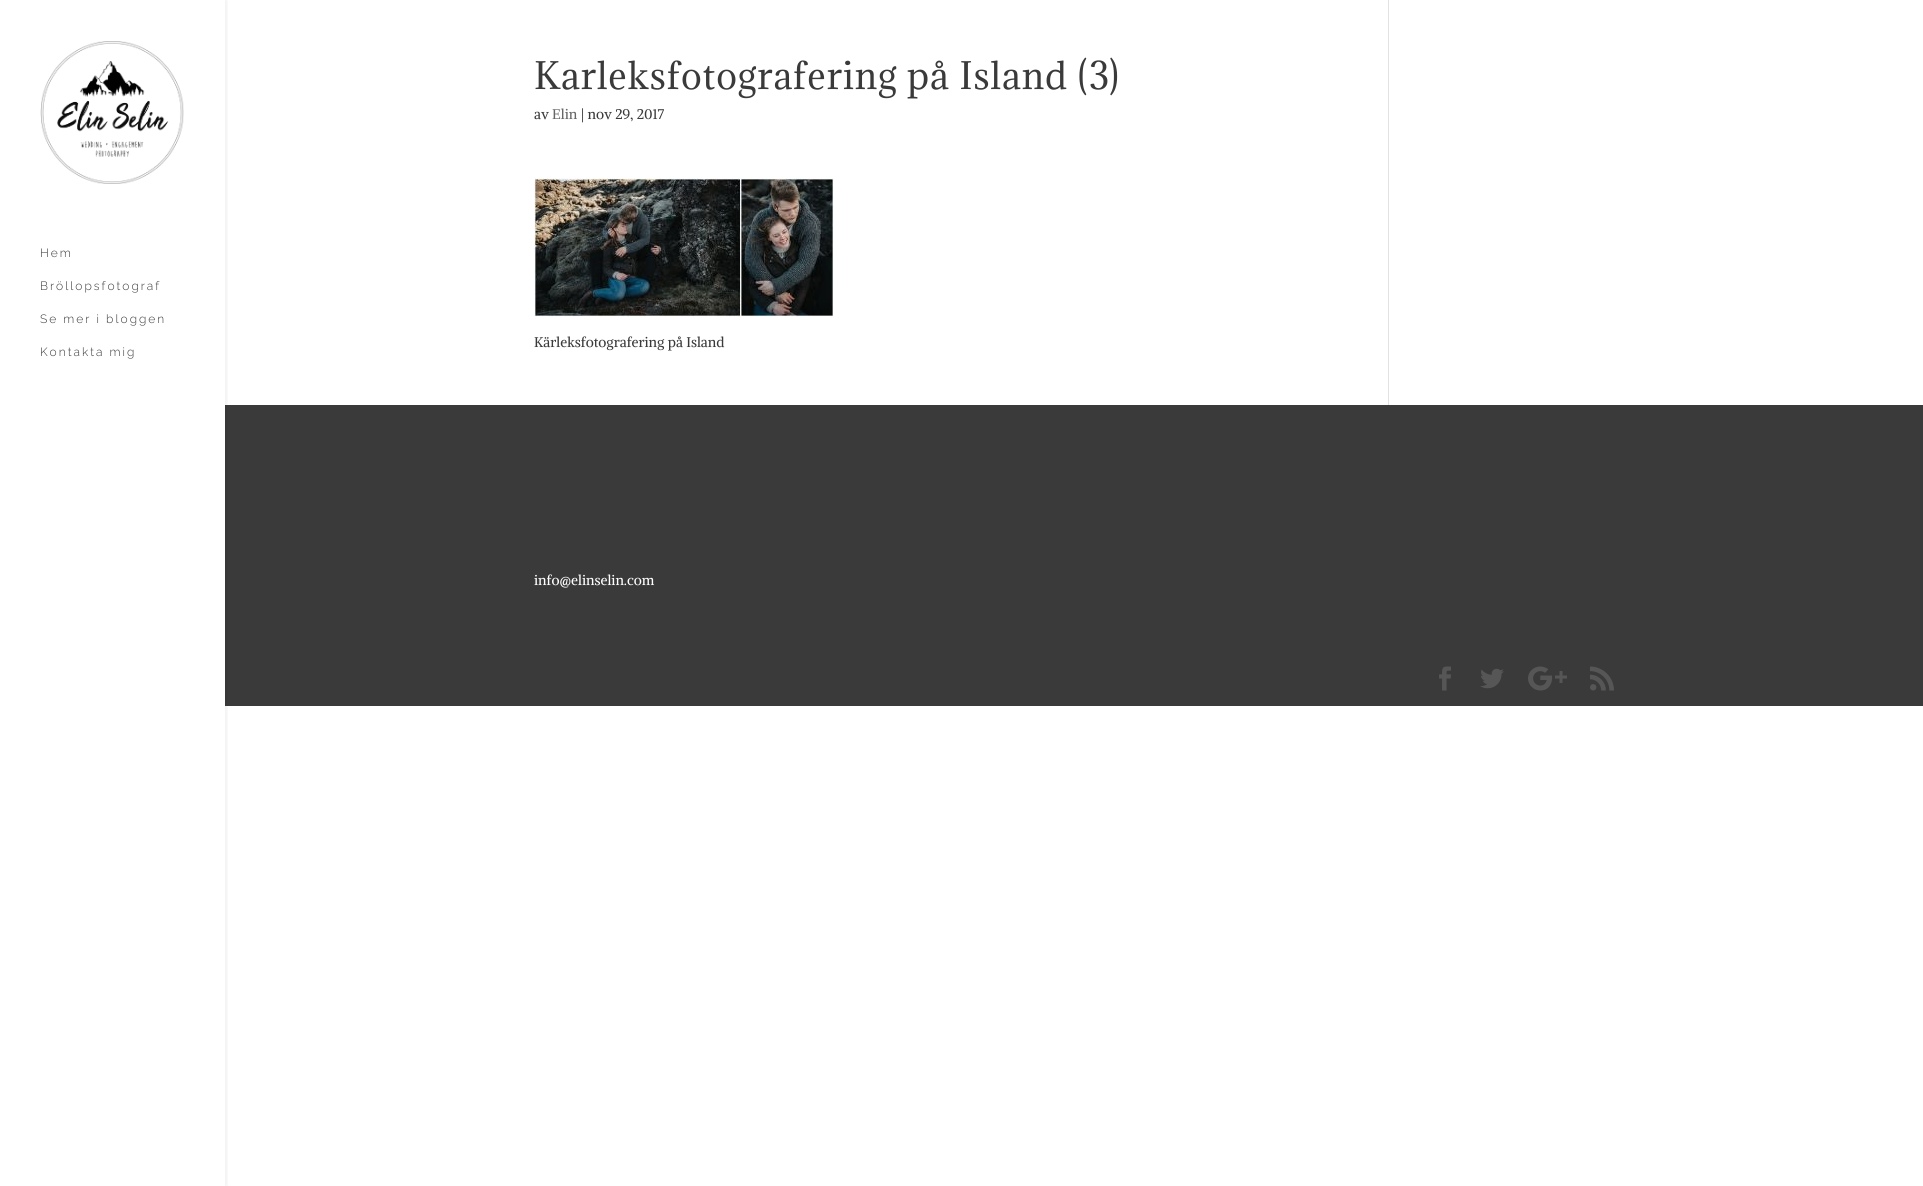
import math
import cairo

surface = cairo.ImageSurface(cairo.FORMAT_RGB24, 1923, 1186)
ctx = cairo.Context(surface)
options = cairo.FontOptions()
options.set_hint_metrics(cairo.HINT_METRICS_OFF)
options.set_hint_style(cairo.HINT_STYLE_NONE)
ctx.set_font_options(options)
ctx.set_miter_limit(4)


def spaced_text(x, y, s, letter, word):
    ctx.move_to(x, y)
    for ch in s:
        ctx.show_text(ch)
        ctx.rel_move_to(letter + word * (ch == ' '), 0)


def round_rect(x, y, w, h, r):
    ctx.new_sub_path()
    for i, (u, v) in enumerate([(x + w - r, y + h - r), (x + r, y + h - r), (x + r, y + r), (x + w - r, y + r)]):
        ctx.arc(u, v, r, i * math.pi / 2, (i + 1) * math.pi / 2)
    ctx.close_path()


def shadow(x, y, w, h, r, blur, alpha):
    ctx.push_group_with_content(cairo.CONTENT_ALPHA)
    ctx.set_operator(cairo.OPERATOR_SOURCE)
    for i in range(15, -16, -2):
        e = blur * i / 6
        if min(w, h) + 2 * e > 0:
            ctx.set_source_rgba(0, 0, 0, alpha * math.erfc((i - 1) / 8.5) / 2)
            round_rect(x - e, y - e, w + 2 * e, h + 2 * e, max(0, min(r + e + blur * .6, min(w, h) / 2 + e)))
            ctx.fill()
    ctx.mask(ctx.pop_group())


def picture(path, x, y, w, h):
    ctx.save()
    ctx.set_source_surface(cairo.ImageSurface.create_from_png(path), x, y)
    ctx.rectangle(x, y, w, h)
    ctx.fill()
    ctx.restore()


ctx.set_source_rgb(1, 1, 1)
ctx.paint()
ctx.set_source_rgb(0.227, 0.227, 0.227)
ctx.rectangle(225, 405, 1698, 301)
ctx.fill()
ctx.save()
ctx.rectangle(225, 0, 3, 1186)
ctx.clip()
ctx.set_source_rgb(0, 0, 0)
shadow(0, 0, 225, 1186, 0, 3.5, 0.1)
ctx.restore()
picture("img1.png", 40, 41, 144, 143)
ctx.select_font_face("Raleway Light")
ctx.set_font_size(12)
spaced_text(40, 257, "Hem", 2, 0)
spaced_text(40, 290, "Bröllopsfotograf", 2, 0)
spaced_text(40, 323, "Se mer i bloggen", 2, 0)
spaced_text(40, 356, "Kontakta mig", 2, 0)
ctx.select_font_face("Adamina")
ctx.set_font_size(35)
spaced_text(534, 89, "Karleksfotografering på Island (3)", 1, 0)
ctx.select_font_face("Alike")
ctx.set_font_size(14)
ctx.move_to(534, 119)
ctx.show_text("av")
ctx.set_source_rgb(0.4, 0.4, 0.4)
ctx.move_to(552, 119)
ctx.show_text("Elin")
ctx.set_source_rgb(0.227, 0.227, 0.227)
ctx.move_to(581, 119)
ctx.show_text("| nov 29, 2017")
picture("img2.png", 534, 178, 300, 139)
ctx.move_to(534, 347)
ctx.show_text("Kärleksfotografering på Island")
ctx.set_source_rgb(0.886, 0.886, 0.886)
ctx.rectangle(1388, 0, 1, 405)
ctx.fill()
ctx.set_source_rgb(1, 1, 1)
ctx.move_to(534, 585)
ctx.show_text("info@elinselin.com")
picture("img3.png", 1439, 666, 12, 25)
picture("img4.png", 1480, 668, 24, 21)
picture("img5.png", 1528, 666, 39, 25)
picture("img6.png", 1590, 666, 24, 25)
surface.write_to_png("page.png")
